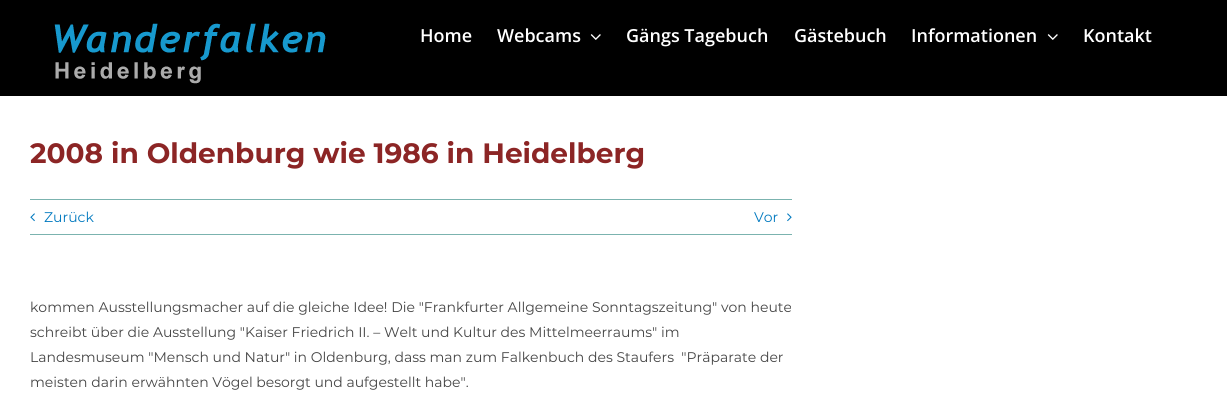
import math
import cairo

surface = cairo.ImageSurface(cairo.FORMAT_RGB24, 1227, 404)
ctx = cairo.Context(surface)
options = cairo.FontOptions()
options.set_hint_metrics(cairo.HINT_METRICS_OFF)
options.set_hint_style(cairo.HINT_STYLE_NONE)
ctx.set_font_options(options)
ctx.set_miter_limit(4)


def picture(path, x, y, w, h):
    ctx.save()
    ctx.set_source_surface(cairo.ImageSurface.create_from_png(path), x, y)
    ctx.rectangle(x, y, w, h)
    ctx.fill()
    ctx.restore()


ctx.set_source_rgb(1, 1, 1)
ctx.paint()
ctx.set_source_rgb(0, 0, 0)
ctx.rectangle(0, 0, 1227, 96)
ctx.fill()
picture("img1.png", 54, 23, 272, 61)
ctx.select_font_face("Open Sans SemiBold")
ctx.set_font_size(18)
ctx.set_source_rgb(1, 1, 1)
ctx.move_to(420, 42)
ctx.show_text("Home")
ctx.move_to(497, 42)
ctx.show_text("Webcams")
picture("img2.png", 590, 34, 11, 6)
ctx.move_to(626, 42)
ctx.show_text("Gängs Tagebuch")
ctx.move_to(794, 42)
ctx.show_text("Gästebuch")
ctx.move_to(911, 42)
ctx.show_text("Informationen")
picture("img2.png", 1047, 34, 11, 6)
ctx.move_to(1083, 42)
ctx.show_text("Kontakt")
ctx.select_font_face("Montserrat", cairo.FONT_SLANT_NORMAL, cairo.FONT_WEIGHT_BOLD)
ctx.set_font_size(28)
ctx.set_source_rgb(0.549, 0.145, 0.145)
ctx.move_to(30, 163)
ctx.show_text("2008 in Oldenburg wie 1986 in Heidelberg")
ctx.set_source_rgb(0.482, 0.702, 0.686)
ctx.rectangle(30, 199, 762, 1)
ctx.fill()
ctx.rectangle(30, 234, 762, 1)
ctx.fill()
picture("img3.png", 30, 213, 5, 9)
ctx.select_font_face("Montserrat")
ctx.set_font_size(14)
ctx.set_source_rgb(0.004, 0.475, 0.749)
ctx.move_to(44, 222)
ctx.show_text("Zurück")
ctx.move_to(754, 222)
ctx.show_text("Vor")
picture("img4.png", 787, 213, 5, 9)
ctx.set_source_rgb(0.271, 0.271, 0.271)
ctx.move_to(30, 312)
ctx.show_text("kommen Ausstellungsmacher auf die gleiche Idee! Die \"Frankfurter Allgemeine Sonntagszeitung\" von heute")
ctx.move_to(30, 337)
ctx.show_text("schreibt über die Ausstellung \"Kaiser Friedrich II. – Welt und Kultur des Mittelmeerraums\" im")
ctx.move_to(30, 362)
ctx.show_text("Landesmuseum \"Mensch und Natur\" in Oldenburg, dass man zum Falkenbuch des Staufers  \"Präparate der")
ctx.move_to(30, 387)
ctx.show_text("meisten darin erwähnten Vögel besorgt und aufgestellt habe\".")
surface.write_to_png("page.png")
